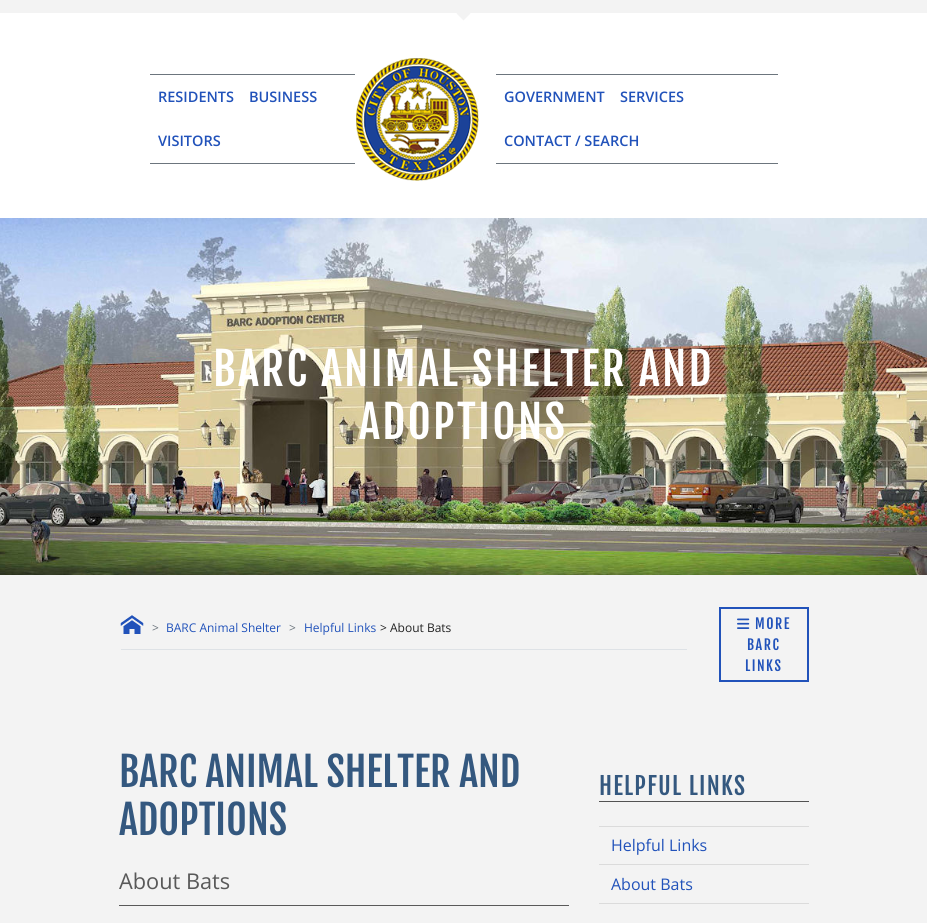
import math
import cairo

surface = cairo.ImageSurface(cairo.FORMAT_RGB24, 927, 923)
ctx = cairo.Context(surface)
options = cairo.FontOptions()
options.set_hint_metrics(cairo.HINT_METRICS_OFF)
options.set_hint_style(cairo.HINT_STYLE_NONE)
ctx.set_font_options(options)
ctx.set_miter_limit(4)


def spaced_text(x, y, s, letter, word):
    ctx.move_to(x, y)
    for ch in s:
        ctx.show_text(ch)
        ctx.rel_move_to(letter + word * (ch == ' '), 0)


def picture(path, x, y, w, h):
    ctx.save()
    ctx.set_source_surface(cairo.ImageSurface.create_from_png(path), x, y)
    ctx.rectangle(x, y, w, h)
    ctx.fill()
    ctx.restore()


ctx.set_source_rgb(1, 1, 1)
ctx.paint()
ctx.set_source_rgb(0.953, 0.953, 0.953)
ctx.rectangle(0, 0, 927, 13)
ctx.fill()
ctx.new_path()
ctx.move_to(456.5, 13.5)
ctx.line_to(463.5, 6)
ctx.line_to(470.5, 13.5)
ctx.line_to(463.5, 20.5)
ctx.close_path()
ctx.fill()
ctx.set_source_rgb(0.424, 0.459, 0.49)
ctx.rectangle(150, 74, 205, 1)
ctx.fill()
ctx.rectangle(150, 163, 205, 1)
ctx.fill()
ctx.select_font_face("Open Sans SemiBold")
ctx.set_font_size(14.5)
ctx.set_source_rgb(0.129, 0.322, 0.729)
ctx.move_to(158, 102)
ctx.show_text("RESIDENTS")
ctx.move_to(249, 102)
ctx.show_text("BUSINESS")
ctx.move_to(158, 146)
ctx.show_text("VISITORS")
picture("img1.png", 356, 58, 123, 123)
ctx.set_source_rgb(0.424, 0.459, 0.49)
ctx.rectangle(496, 74, 282, 1)
ctx.fill()
ctx.rectangle(496, 163, 282, 1)
ctx.fill()
ctx.set_source_rgb(0.129, 0.322, 0.729)
ctx.move_to(504, 102)
ctx.show_text("GOVERNMENT")
ctx.move_to(620, 102)
ctx.show_text("SERVICES")
ctx.move_to(504, 146)
ctx.show_text("CONTACT / SEARCH")
picture("img2.png", 0, 218, 927, 357)
ctx.select_font_face("Fjalla One")
ctx.set_font_size(44.75)
ctx.set_source_rgb(1, 1, 1)
spaced_text(213, 386, "BARC ANIMAL SHELTER AND", 2.25, 0)
spaced_text(359, 439, "ADOPTIONS", 2.25, 0)
ctx.set_source_rgb(0.953, 0.953, 0.953)
ctx.rectangle(0, 575, 927, 348)
ctx.fill()
ctx.set_source_rgb(0.871, 0.886, 0.902)
ctx.rectangle(121, 649, 566, 1)
ctx.fill()
picture("img3.png", 120, 615, 24, 19)
ctx.select_font_face("Open Sans")
ctx.set_font_size(12)
ctx.set_source_rgb(0.424, 0.459, 0.49)
ctx.move_to(152, 632)
ctx.show_text(">")
ctx.set_source_rgb(0.129, 0.322, 0.729)
ctx.move_to(166, 632)
ctx.show_text("BARC Animal Shelter")
ctx.set_source_rgb(0.424, 0.459, 0.49)
ctx.move_to(289, 632)
ctx.show_text(">")
ctx.set_source_rgb(0.129, 0.322, 0.729)
ctx.move_to(304, 632)
ctx.show_text("Helpful Links")
ctx.set_source_rgb(0.133, 0.133, 0.133)
ctx.move_to(380, 632)
ctx.show_text("> About Bats")
ctx.rectangle(720, 608, 88, 73)
ctx.set_source_rgb(0.129, 0.322, 0.729)
ctx.stroke()
picture("img4.png", 737, 618, 13, 11)
ctx.select_font_face("Fjalla One")
ctx.set_font_size(14)
spaced_text(755, 629, "MORE", 1.5, 0)
spaced_text(747, 650, "BARC", 1.5, 0)
spaced_text(745, 671, "LINKS", 1.5, 0)
ctx.set_font_size(40)
ctx.set_source_rgb(0.204, 0.345, 0.498)
ctx.move_to(119, 787)
ctx.show_text("BARC ANIMAL SHELTER AND")
ctx.move_to(119, 835)
ctx.show_text("ADOPTIONS")
ctx.set_source_rgb(0.349, 0.349, 0.349)
ctx.rectangle(119, 905, 450, 1)
ctx.fill()
ctx.select_font_face("Open Sans")
ctx.set_font_size(21.75)
ctx.move_to(119, 889)
ctx.show_text("About Bats")
ctx.set_source_rgb(0.322, 0.322, 0.322)
ctx.rectangle(599, 801, 210, 1)
ctx.fill()
ctx.select_font_face("Fjalla One")
ctx.set_font_size(24)
ctx.set_source_rgb(0.204, 0.345, 0.498)
spaced_text(599, 795, "HELPFUL LINKS", 1.25, 0)
ctx.set_source_rgb(0.859, 0.859, 0.859)
ctx.rectangle(599, 826, 210, 1)
ctx.fill()
ctx.select_font_face("Open Sans")
ctx.set_font_size(16)
ctx.set_source_rgb(0.129, 0.322, 0.729)
ctx.move_to(611, 851)
ctx.show_text("Helpful Links")
ctx.set_source_rgb(0.859, 0.859, 0.859)
ctx.rectangle(599, 864, 210, 1)
ctx.fill()
ctx.set_source_rgb(0.129, 0.322, 0.729)
ctx.move_to(611, 890)
ctx.show_text("About Bats")
ctx.set_source_rgb(0.859, 0.859, 0.859)
ctx.rectangle(599, 903, 210, 1)
ctx.fill()
surface.write_to_png("page.png")
